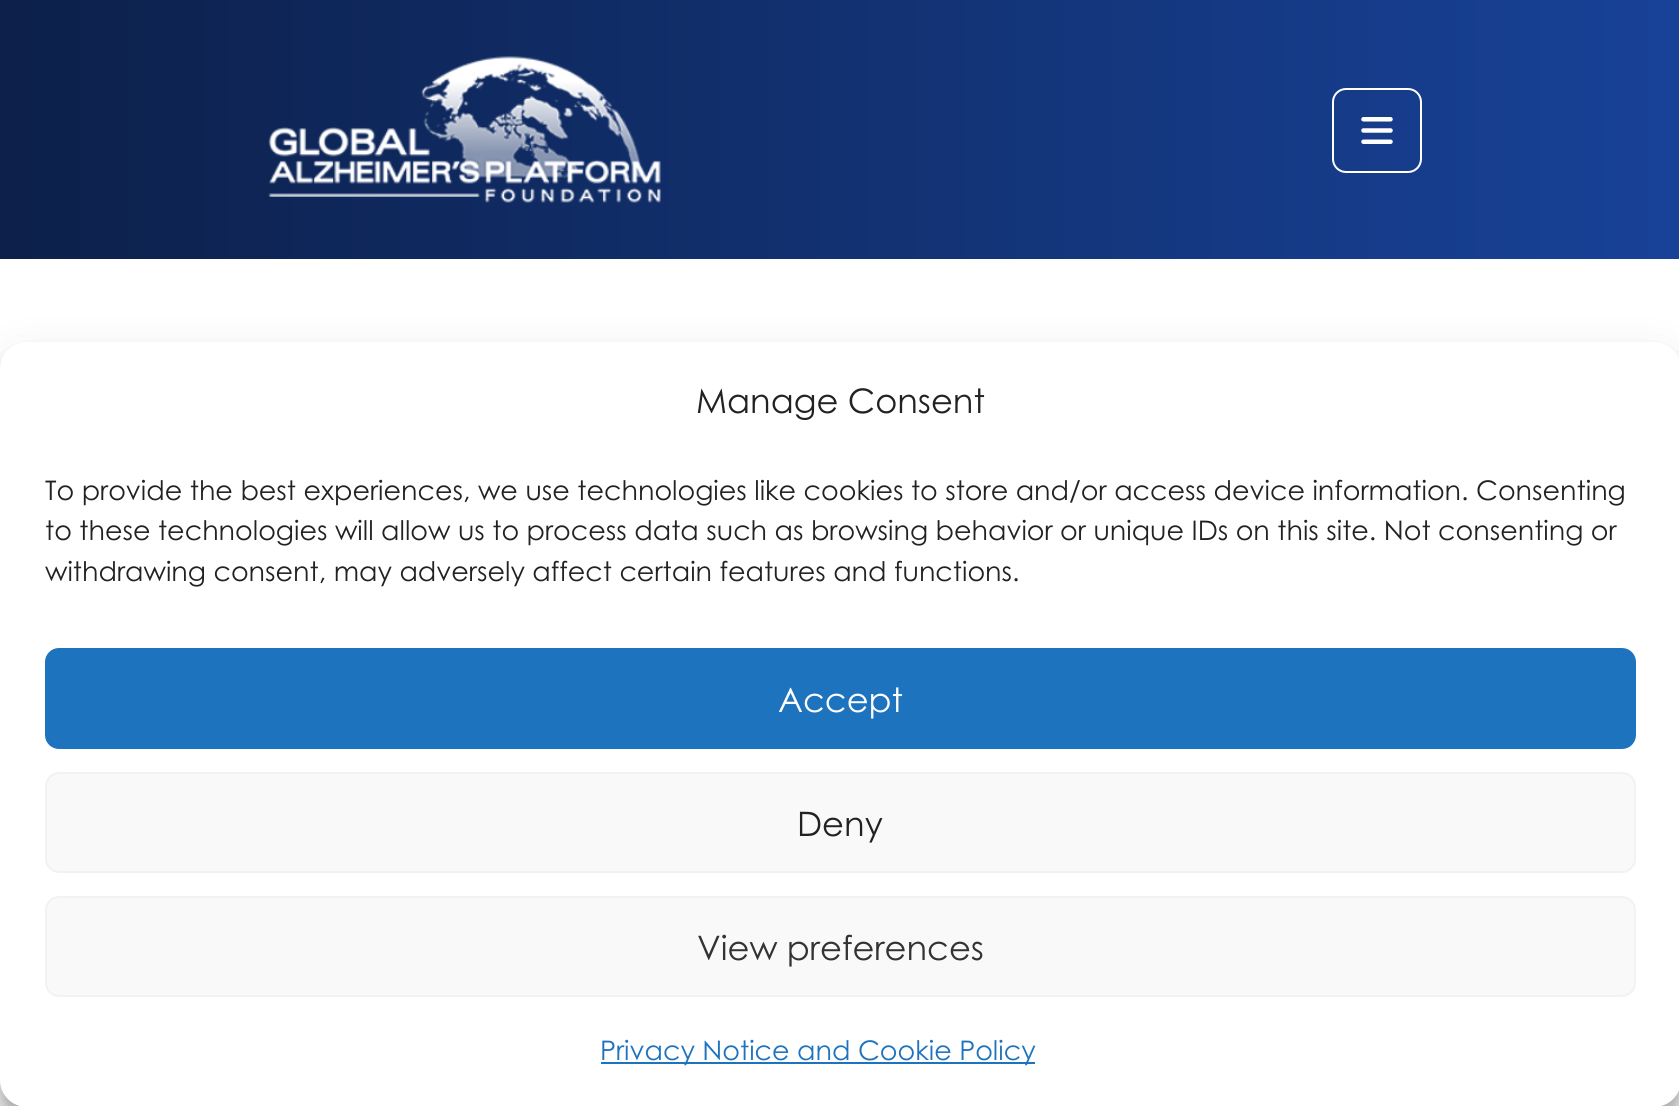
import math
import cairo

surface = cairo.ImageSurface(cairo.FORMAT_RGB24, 1679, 1106)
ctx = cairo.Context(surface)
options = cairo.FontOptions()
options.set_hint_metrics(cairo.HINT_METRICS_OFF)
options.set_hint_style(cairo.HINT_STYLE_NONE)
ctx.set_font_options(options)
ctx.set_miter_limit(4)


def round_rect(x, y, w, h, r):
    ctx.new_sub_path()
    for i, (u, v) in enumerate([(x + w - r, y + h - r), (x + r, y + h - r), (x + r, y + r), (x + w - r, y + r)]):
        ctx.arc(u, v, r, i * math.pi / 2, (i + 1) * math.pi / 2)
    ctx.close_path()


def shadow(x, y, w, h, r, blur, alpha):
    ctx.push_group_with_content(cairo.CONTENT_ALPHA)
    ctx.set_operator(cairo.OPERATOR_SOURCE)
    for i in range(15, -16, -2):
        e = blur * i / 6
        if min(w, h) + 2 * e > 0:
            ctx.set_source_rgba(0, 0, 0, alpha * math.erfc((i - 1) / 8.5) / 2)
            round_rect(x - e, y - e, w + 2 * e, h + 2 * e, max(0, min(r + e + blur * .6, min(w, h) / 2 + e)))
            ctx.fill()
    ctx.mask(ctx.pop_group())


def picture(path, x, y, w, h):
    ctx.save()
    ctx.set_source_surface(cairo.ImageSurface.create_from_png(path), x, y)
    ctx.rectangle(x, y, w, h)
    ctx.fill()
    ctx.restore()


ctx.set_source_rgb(1, 1, 1)
ctx.paint()
gradient = cairo.LinearGradient(0, 129, 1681, 129)
gradient.add_color_stop_rgba(0, 0.047, 0.125, 0.29, 1)
gradient.add_color_stop_rgba(1, 0.094, 0.259, 0.596, 1)
ctx.set_source(gradient)
ctx.rectangle(0, 0, 1679, 259)
ctx.fill()
picture("img1.png", 268, 56, 393, 147)
round_rect(1333, 89, 88, 83, 13)
ctx.set_source_rgb(1, 1, 1)
ctx.stroke()
picture("img2.png", 1361, 117, 32, 27)
ctx.set_source_rgb(0, 0, 0)
shadow(0, 356, 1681, 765, 27, 7, 0.23)
shadow(0, 365, 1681, 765, 27, 22.5, 0.19)
ctx.set_source_rgb(1, 1, 1)
round_rect(0, 342, 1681, 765, 27)
ctx.fill()
ctx.select_font_face("Century Gothic")
ctx.set_font_size(33.75)
ctx.set_source_rgb(0.133, 0.133, 0.133)
ctx.move_to(696, 413)
ctx.show_text("Manage Consent")
ctx.set_font_size(27)
ctx.move_to(45, 500)
ctx.show_text("To provide the best experiences, we use technologies like cookies to store and/or access device information. Consenting")
ctx.move_to(45, 540)
ctx.show_text("to these technologies will allow us to process data such as browsing behavior or unique IDs on this site. Not consenting or")
ctx.move_to(45, 581)
ctx.show_text("withdrawing consent, may adversely affect certain features and functions.")
ctx.set_source_rgb(0.118, 0.451, 0.745)
round_rect(46, 649, 1589, 99, 13)
ctx.fill_preserve()
ctx.stroke()
ctx.set_font_size(33.75)
ctx.set_source_rgb(1, 1, 1)
ctx.move_to(778, 712)
ctx.show_text("Accept")
ctx.set_source_rgb(0.976, 0.976, 0.976)
round_rect(46, 773, 1589, 99, 13)
ctx.fill_preserve()
ctx.set_source_rgb(0.949, 0.949, 0.949)
ctx.stroke()
ctx.set_source_rgb(0.133, 0.133, 0.133)
ctx.move_to(797, 836)
ctx.show_text("Deny")
ctx.set_source_rgb(0.976, 0.976, 0.976)
round_rect(46, 897, 1589, 99, 13)
ctx.fill_preserve()
ctx.set_source_rgb(0.949, 0.949, 0.949)
ctx.stroke()
ctx.set_source_rgb(0.2, 0.2, 0.2)
ctx.move_to(697, 960)
ctx.show_text("View preferences")
ctx.set_source_rgb(0.118, 0.451, 0.745)
ctx.rectangle(601, 1062, 434, 2)
ctx.fill()
ctx.set_font_size(27)
ctx.move_to(600, 1060)
ctx.show_text("Privacy Notice and Cookie Policy")
surface.write_to_png("page.png")
